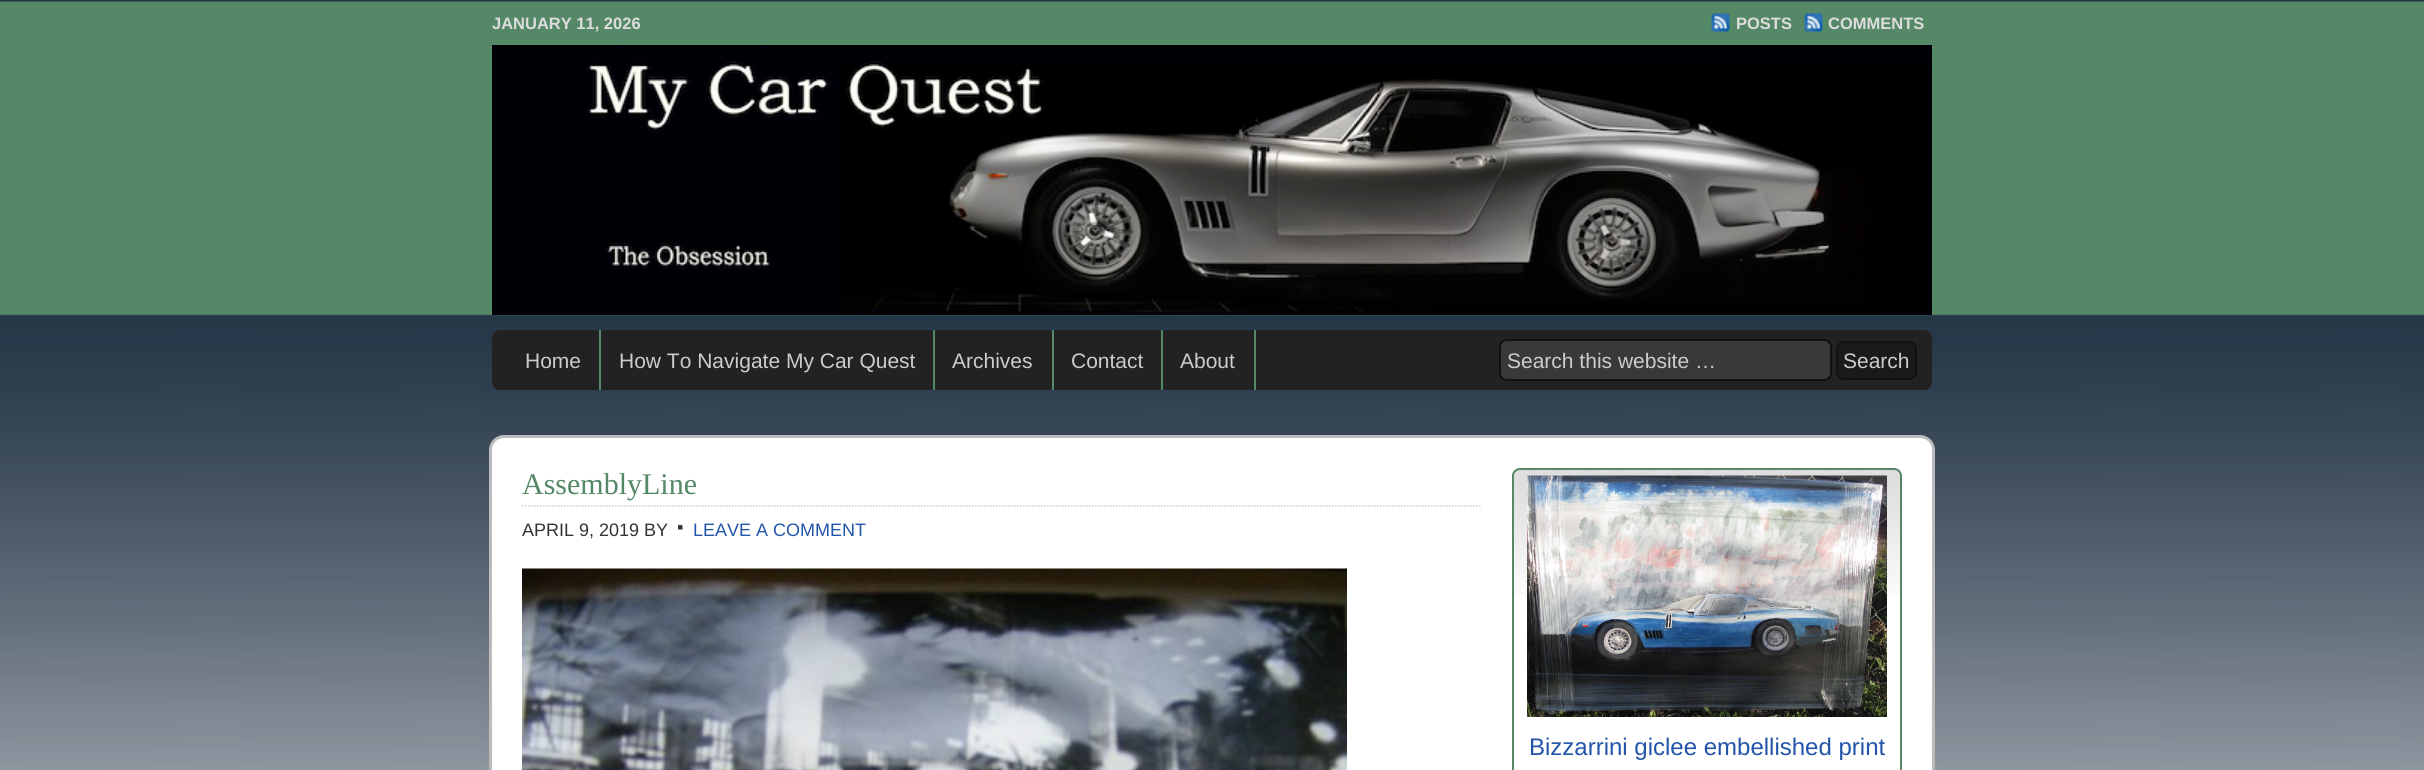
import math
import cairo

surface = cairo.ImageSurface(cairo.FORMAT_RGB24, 2424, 770)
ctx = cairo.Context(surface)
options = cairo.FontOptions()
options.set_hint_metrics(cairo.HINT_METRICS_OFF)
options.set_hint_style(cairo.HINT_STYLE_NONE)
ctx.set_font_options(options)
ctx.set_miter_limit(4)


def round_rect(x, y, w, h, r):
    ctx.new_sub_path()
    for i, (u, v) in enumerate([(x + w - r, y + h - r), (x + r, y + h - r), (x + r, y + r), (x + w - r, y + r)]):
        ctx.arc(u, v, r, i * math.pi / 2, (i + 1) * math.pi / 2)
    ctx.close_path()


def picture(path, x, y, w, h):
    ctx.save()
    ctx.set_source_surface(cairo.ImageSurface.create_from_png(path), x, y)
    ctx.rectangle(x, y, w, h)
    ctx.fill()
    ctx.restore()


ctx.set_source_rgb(0.882, 0.89, 0.902)
ctx.paint()
picture("img1.png", 0, 0, 2424, 770)
ctx.select_font_face("Liberation Sans", cairo.FONT_SLANT_NORMAL, cairo.FONT_WEIGHT_BOLD)
ctx.set_font_size(16.5)
ctx.set_source_rgb(0.867, 0.867, 0.867)
ctx.move_to(492, 29)
ctx.show_text("JANUARY 11, 2026")
picture("img2.png", 1711, 13, 19, 19)
ctx.move_to(1736, 29)
ctx.show_text("POSTS")
picture("img3.png", 1804, 13, 19, 19)
ctx.move_to(1828, 29)
ctx.show_text("COMMENTS")
picture("img4.png", 492, 45, 1440, 270)
ctx.set_source_rgb(0.133, 0.133, 0.133)
round_rect(492, 330, 1440, 60, 8)
ctx.fill()
ctx.set_source_rgb(0.333, 0.533, 0.4)
ctx.rectangle(599, 330, 2, 60)
ctx.fill()
ctx.select_font_face("Liberation Sans")
ctx.set_font_size(21)
ctx.set_source_rgb(0.8, 0.8, 0.8)
ctx.move_to(525, 368)
ctx.show_text("Home")
ctx.set_source_rgb(0.333, 0.533, 0.4)
ctx.rectangle(933, 330, 2, 60)
ctx.fill()
ctx.set_source_rgb(0.8, 0.8, 0.8)
ctx.move_to(619, 368)
ctx.show_text("How To Navigate My Car Quest")
ctx.set_source_rgb(0.333, 0.533, 0.4)
ctx.rectangle(1052, 330, 2, 60)
ctx.fill()
ctx.set_source_rgb(0.8, 0.8, 0.8)
ctx.move_to(952, 368)
ctx.show_text("Archives")
ctx.set_source_rgb(0.333, 0.533, 0.4)
ctx.rectangle(1161, 330, 2, 60)
ctx.fill()
ctx.set_source_rgb(0.8, 0.8, 0.8)
ctx.move_to(1071, 368)
ctx.show_text("Contact")
ctx.set_source_rgb(0.333, 0.533, 0.4)
ctx.rectangle(1254, 330, 2, 60)
ctx.fill()
ctx.set_source_rgb(0.8, 0.8, 0.8)
ctx.move_to(1180, 368)
ctx.show_text("About")
ctx.set_source_rgb(0.224, 0.224, 0.224)
round_rect(1500, 340, 331, 40, 7)
ctx.fill_preserve()
ctx.set_source_rgb(0.067, 0.067, 0.067)
ctx.stroke()
ctx.set_source_rgb(0.8, 0.8, 0.8)
ctx.move_to(1507, 368)
ctx.show_text("Search this website …")
ctx.set_source_rgb(0.102, 0.102, 0.102)
round_rect(1837, 342, 79, 37, 7)
ctx.fill_preserve()
ctx.set_source_rgb(0.067, 0.067, 0.067)
ctx.stroke()
ctx.set_source_rgb(0.8, 0.8, 0.8)
ctx.move_to(1843, 368)
ctx.show_text("Search")
ctx.set_source_rgb(1, 1, 1)
round_rect(490.5, 436.5, 1443, 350, 13.5)
ctx.fill_preserve()
ctx.set_source_rgb(0.733, 0.733, 0.733)
ctx.set_line_width(3)
ctx.stroke()
ctx.select_font_face("Liberation Serif")
ctx.set_font_size(30)
ctx.set_source_rgb(0.333, 0.533, 0.4)
ctx.move_to(522, 494)
ctx.show_text("AssemblyLine")
ctx.new_path()
ctx.move_to(522, 506)
ctx.line_to(1482, 506)
ctx.set_source_rgb(0.8, 0.8, 0.8)
ctx.set_line_width(1.5)
ctx.set_dash([1.5, 1.5])
ctx.stroke()
ctx.select_font_face("Liberation Sans")
ctx.set_font_size(18)
ctx.set_source_rgb(0.2, 0.2, 0.2)
ctx.move_to(522, 536)
ctx.show_text("APRIL 9, 2019 BY")
picture("img5.png", 678, 524, 5, 6)
ctx.set_source_rgb(0.133, 0.333, 0.667)
ctx.move_to(693, 536)
ctx.show_text("LEAVE A COMMENT")
picture("img6.png", 522, 568, 825, 202)
picture("img7.png", 1512, 469, 390, 126)
round_rect(1513, 469, 388, 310, 7)
ctx.set_source_rgb(0.333, 0.533, 0.4)
ctx.set_line_width(2)
ctx.set_dash([])
ctx.stroke()
picture("img8.png", 1527, 475, 360, 242)
ctx.set_font_size(24)
ctx.set_source_rgb(0.133, 0.333, 0.667)
ctx.move_to(1529, 755)
ctx.show_text("Bizzarrini giclee embellished print")
surface.write_to_png("page.png")
